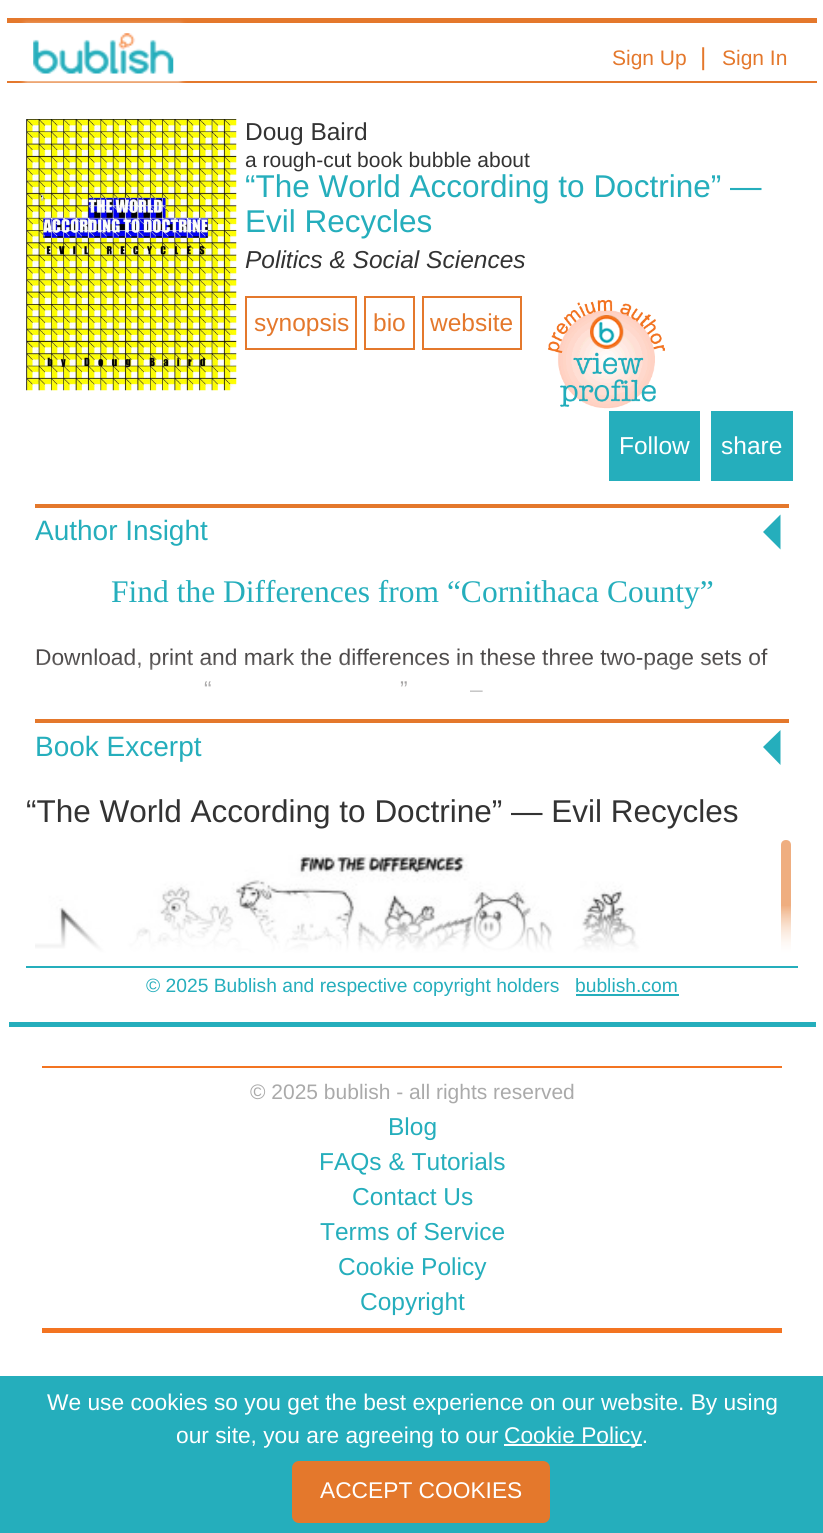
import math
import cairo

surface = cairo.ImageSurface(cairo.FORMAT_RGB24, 823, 1533)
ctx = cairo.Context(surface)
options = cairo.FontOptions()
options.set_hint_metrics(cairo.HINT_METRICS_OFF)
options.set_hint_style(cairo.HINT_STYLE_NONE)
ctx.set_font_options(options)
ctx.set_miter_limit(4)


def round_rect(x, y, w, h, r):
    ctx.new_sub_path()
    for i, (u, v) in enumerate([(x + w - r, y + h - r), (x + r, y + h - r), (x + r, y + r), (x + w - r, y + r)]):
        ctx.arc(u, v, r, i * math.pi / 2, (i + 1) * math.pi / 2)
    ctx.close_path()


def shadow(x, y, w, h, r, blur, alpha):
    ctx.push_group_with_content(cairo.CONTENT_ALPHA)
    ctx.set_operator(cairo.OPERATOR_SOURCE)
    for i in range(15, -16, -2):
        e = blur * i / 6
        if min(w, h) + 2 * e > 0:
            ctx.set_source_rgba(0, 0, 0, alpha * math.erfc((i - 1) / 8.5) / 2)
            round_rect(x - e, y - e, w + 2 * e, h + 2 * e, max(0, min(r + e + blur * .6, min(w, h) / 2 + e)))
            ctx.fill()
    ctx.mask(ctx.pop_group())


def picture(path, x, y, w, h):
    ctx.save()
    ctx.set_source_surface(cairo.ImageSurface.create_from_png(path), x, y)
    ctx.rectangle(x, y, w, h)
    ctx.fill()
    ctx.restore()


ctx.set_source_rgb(1, 1, 1)
ctx.paint()
ctx.set_source_rgb(0.894, 0.471, 0.173)
ctx.rectangle(7, 18, 810, 5)
ctx.fill()
ctx.rectangle(7, 81, 810, 2)
ctx.fill()
ctx.save()
ctx.set_fill_rule(cairo.FILL_RULE_EVEN_ODD)
ctx.new_path()
ctx.move_to(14, 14)
ctx.line_to(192, 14)
ctx.line_to(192, 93)
ctx.line_to(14, 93)
ctx.close_path()
ctx.move_to(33, 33)
ctx.line_to(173, 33)
ctx.line_to(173, 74)
ctx.line_to(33, 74)
ctx.close_path()
ctx.clip()
ctx.set_source_rgb(1, 1, 1)
shadow(26, 26, 154, 55, 0, 3.5, 1)
ctx.restore()
picture("img1.png", 33, 33, 141, 41)
ctx.select_font_face("Liberation Sans")
ctx.set_font_size(21)
ctx.move_to(612, 65)
ctx.show_text("Sign Up")
ctx.set_font_size(24.5)
ctx.move_to(700, 65)
ctx.show_text("|")
ctx.set_font_size(21)
ctx.move_to(722, 65)
ctx.show_text("Sign In")
ctx.set_source_rgb(0.145, 0.682, 0.737)
ctx.rectangle(9, 1022, 807, 5)
ctx.fill()
picture("img2.png", 26, 119, 211, 272)
ctx.set_font_size(24.5)
ctx.set_source_rgb(0.2, 0.2, 0.2)
ctx.move_to(245, 140)
ctx.show_text("Doug Baird")
ctx.set_font_size(21)
ctx.move_to(245, 167)
ctx.show_text("a rough-cut book bubble about")
ctx.set_font_size(31.5)
ctx.set_source_rgb(0.145, 0.682, 0.737)
ctx.move_to(245, 197)
ctx.show_text("“The World According to Doctrine” —")
ctx.move_to(245, 232)
ctx.show_text("Evil Recycles")
ctx.select_font_face("Liberation Sans", cairo.FONT_SLANT_ITALIC)
ctx.set_font_size(24.5)
ctx.set_source_rgb(0.2, 0.2, 0.2)
ctx.move_to(245, 268)
ctx.show_text("Politics & Social Sciences")
ctx.rectangle(246, 297, 110, 52)
ctx.set_source_rgb(0.894, 0.471, 0.173)
ctx.stroke()
ctx.select_font_face("Liberation Sans")
ctx.move_to(254, 331)
ctx.show_text("synopsis")
ctx.rectangle(365, 297, 49, 52)
ctx.stroke()
ctx.move_to(373, 331)
ctx.show_text("bio")
ctx.rectangle(423, 297, 98, 52)
ctx.stroke()
ctx.move_to(430, 331)
ctx.show_text("website")
picture("img3.png", 548, 299, 117, 110)
ctx.set_source_rgb(0.145, 0.682, 0.737)
ctx.rectangle(609, 411, 91, 70)
ctx.fill()
ctx.set_source_rgb(1, 1, 1)
ctx.move_to(619, 454)
ctx.show_text("Follow")
ctx.set_source_rgb(0.145, 0.682, 0.737)
ctx.rectangle(711, 411, 82, 70)
ctx.fill()
ctx.set_source_rgb(1, 1, 1)
ctx.move_to(721, 454)
ctx.show_text("share")
ctx.set_source_rgb(0.894, 0.471, 0.173)
ctx.rectangle(35, 504, 754, 4)
ctx.fill()
ctx.set_font_size(28)
ctx.set_source_rgb(0.145, 0.682, 0.737)
ctx.move_to(35, 540)
ctx.show_text("Author Insight")
ctx.new_path()
ctx.move_to(780.5, 514.5)
ctx.line_to(780.5, 549.5)
ctx.line_to(763, 532)
ctx.close_path()
ctx.fill()
ctx.select_font_face("Liberation Serif")
ctx.set_font_size(31.5)
ctx.move_to(111, 602)
ctx.show_text("Find the Differences from “Cornithaca County”")
ctx.select_font_face("Liberation Sans")
ctx.set_font_size(22.75)
ctx.set_source_rgb(0.298, 0.286, 0.286)
ctx.move_to(35, 665)
ctx.show_text("Download, print and mark the differences in these three two-page sets of")
ctx.move_to(204, 697)
ctx.show_text("“")
ctx.move_to(400, 697)
ctx.show_text("”")
ctx.move_to(470, 697)
ctx.show_text("–")
gradient = cairo.LinearGradient(412, 658, 412, 719)
gradient.add_color_stop_rgba(0, 1, 1, 1, 0)
gradient.add_color_stop_rgba(0.8, 1, 1, 1, 1)
gradient.add_color_stop_rgba(1, 1, 1, 1, 1)
ctx.set_source(gradient)
ctx.rectangle(36, 659, 729, 33)
ctx.fill()
ctx.set_source_rgb(0.894, 0.471, 0.173)
ctx.rectangle(35, 719, 754, 4)
ctx.fill()
ctx.set_font_size(28)
ctx.set_source_rgb(0.145, 0.682, 0.737)
ctx.move_to(35, 756)
ctx.show_text("Book Excerpt")
ctx.new_path()
ctx.move_to(780.5, 730)
ctx.line_to(780.5, 765)
ctx.line_to(763, 747)
ctx.close_path()
ctx.fill()
ctx.set_font_size(31.5)
ctx.set_source_rgb(0.2, 0.2, 0.2)
ctx.move_to(26, 822)
ctx.show_text("“The World According to Doctrine” — Evil Recycles")
picture("img4.png", 35, 854, 613, 100)
ctx.set_source_rgb(0.937, 0.682, 0.502)
ctx.new_path()
ctx.move_to(786, 840)
ctx.curve_to(789, 840, 791, 842, 791, 845)
ctx.line_to(791, 966)
ctx.line_to(781, 966)
ctx.line_to(781, 845)
ctx.curve_to(781, 842, 783, 840, 786, 840)
ctx.close_path()
ctx.fill()
gradient = cairo.LinearGradient(412, 905, 412, 966)
gradient.add_color_stop_rgba(0, 1, 1, 1, 0)
gradient.add_color_stop_rgba(1, 1, 1, 1, 1)
ctx.set_source(gradient)
ctx.rectangle(35, 906, 756, 48)
ctx.fill()
gradient = cairo.LinearGradient(412, 905, 412, 966)
gradient.add_color_stop_rgba(0, 1, 1, 1, 0)
gradient.add_color_stop_rgba(0.8, 1, 1, 1, 1)
gradient.add_color_stop_rgba(1, 1, 1, 1, 1)
ctx.set_source(gradient)
ctx.rectangle(35, 906, 756, 60)
ctx.fill()
ctx.set_source_rgb(0.145, 0.682, 0.737)
ctx.rectangle(26, 966, 772, 2)
ctx.fill()
ctx.set_font_size(19.25)
ctx.move_to(146, 992)
ctx.show_text("© 2025 Bublish and respective copyright holders")
ctx.move_to(575, 992)
ctx.show_text("bublish.com")
ctx.rectangle(576, 994, 103, 2)
ctx.fill()
ctx.set_source_rgb(0.953, 0.455, 0.129)
ctx.rectangle(42, 1066, 740, 2)
ctx.fill()
ctx.rectangle(42, 1328, 740, 5)
ctx.fill()
ctx.set_font_size(21)
ctx.set_source_rgb(0.667, 0.667, 0.667)
ctx.move_to(250, 1099)
ctx.show_text("© 2025 bublish - all rights reserved")
ctx.set_font_size(24.5)
ctx.set_source_rgb(0.145, 0.682, 0.737)
ctx.move_to(388, 1135)
ctx.show_text("Blog")
ctx.move_to(319, 1170)
ctx.show_text("FAQs & Tutorials")
ctx.move_to(352, 1205)
ctx.show_text("Contact Us")
ctx.move_to(320, 1240)
ctx.show_text("Terms of Service")
ctx.move_to(338, 1275)
ctx.show_text("Cookie Policy")
ctx.move_to(360, 1310)
ctx.show_text("Copyright")
ctx.rectangle(0, 1376, 823, 157)
ctx.fill()
ctx.set_font_size(22.75)
ctx.set_source_rgb(1, 1, 1)
ctx.move_to(47, 1410)
ctx.show_text("We use cookies so you get the best experience on our website. By using")
ctx.move_to(176, 1443)
ctx.show_text("our site, you are agreeing to our")
ctx.rectangle(504, 1444, 138, 2)
ctx.fill()
ctx.move_to(504, 1443)
ctx.show_text("Cookie Policy.")
ctx.set_source_rgb(0.894, 0.471, 0.173)
round_rect(292, 1461, 258, 62, 7)
ctx.fill()
ctx.set_source_rgb(1, 1, 1)
ctx.move_to(320, 1498)
ctx.show_text("ACCEPT COOKIES")
surface.write_to_png("page.png")
